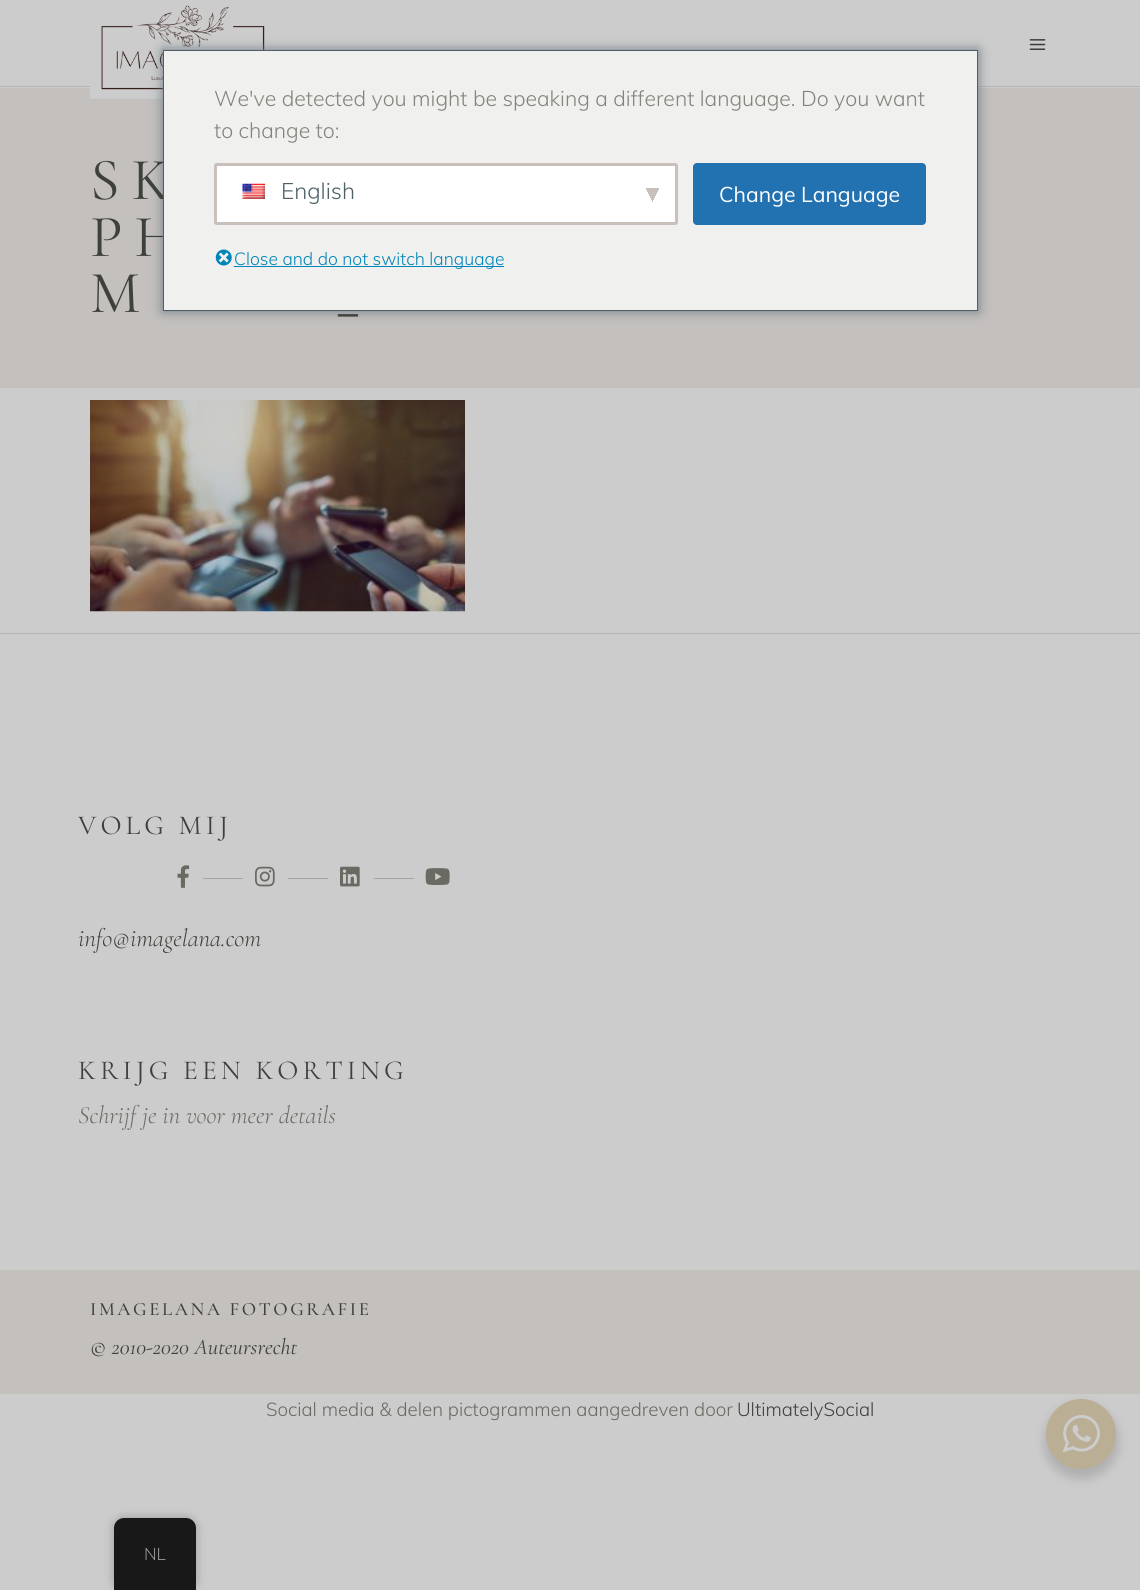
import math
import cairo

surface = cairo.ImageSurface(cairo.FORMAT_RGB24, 1140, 1590)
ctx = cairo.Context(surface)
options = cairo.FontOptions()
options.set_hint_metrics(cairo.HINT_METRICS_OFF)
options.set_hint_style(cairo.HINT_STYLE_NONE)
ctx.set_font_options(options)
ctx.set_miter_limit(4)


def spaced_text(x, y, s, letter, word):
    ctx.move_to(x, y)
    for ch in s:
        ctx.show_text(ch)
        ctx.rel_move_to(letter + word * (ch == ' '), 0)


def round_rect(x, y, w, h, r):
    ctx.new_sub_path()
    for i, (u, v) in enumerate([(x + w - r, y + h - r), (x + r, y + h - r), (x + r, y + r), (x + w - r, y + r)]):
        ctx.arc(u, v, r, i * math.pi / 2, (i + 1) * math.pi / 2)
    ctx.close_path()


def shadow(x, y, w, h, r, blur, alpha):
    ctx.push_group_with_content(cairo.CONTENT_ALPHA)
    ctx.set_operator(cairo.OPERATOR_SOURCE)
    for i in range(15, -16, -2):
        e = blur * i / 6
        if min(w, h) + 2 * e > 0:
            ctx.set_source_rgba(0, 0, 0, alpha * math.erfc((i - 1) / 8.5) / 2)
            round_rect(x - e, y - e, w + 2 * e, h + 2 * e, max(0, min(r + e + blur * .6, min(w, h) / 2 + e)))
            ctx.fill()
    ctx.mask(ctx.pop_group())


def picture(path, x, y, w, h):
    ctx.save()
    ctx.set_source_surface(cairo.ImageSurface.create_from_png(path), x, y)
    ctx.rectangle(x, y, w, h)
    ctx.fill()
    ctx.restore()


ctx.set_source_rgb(0.8, 0.8, 0.8)
ctx.paint()
ctx.set_source_rgb(0.706, 0.706, 0.706)
ctx.rectangle(0, 86, 1140, 1)
ctx.fill()
ctx.set_source_rgb(0.765, 0.753, 0.745)
ctx.rectangle(0, 88, 1140, 300)
ctx.fill()
picture("img3.png", 90, 5, 187, 94)
ctx.set_source_rgb(0.424, 0.467, 0.506)
shadow(163, 50, 815, 261, 0, 6, 1)
ctx.select_font_face("Cormorant Garamond")
ctx.set_font_size(60)
ctx.set_source_rgb(0.243, 0.251, 0.231)
spaced_text(90, 199, "SK", 12, 0)
spaced_text(90, 256, "PH", 12, 0)
ctx.set_source_rgb(0.941, 0.941, 0.933)
ctx.rectangle(163.5, 50.5, 814, 260)
ctx.fill_preserve()
ctx.set_source_rgb(0.298, 0.376, 0.4)
ctx.set_line_width(1)
ctx.stroke()
ctx.select_font_face("Muli Light")
ctx.set_font_size(21.25)
ctx.set_source_rgb(0.518, 0.518, 0.486)
ctx.move_to(214, 106)
ctx.show_text("We've detected you might be speaking a different language. Do you want")
ctx.move_to(214, 138)
ctx.show_text("to change to:")
ctx.set_source_rgb(1, 1, 1)
round_rect(214, 163, 464, 62, 2.5)
ctx.fill()
gradient = cairo.LinearGradient(650, 192, 662, 198)
gradient.add_color_stop_rgba(0.5, 0.788, 0.753, 0.733, 1)
gradient.add_color_stop_rgba(0.5, 1, 1, 1, 1)
ctx.set_source(gradient)
ctx.rectangle(653, 188, 6, 15)
ctx.fill()
gradient = cairo.LinearGradient(643, 198, 655, 192)
gradient.add_color_stop_rgba(0.5, 1, 1, 1, 1)
gradient.add_color_stop_rgba(0.5, 0.788, 0.753, 0.733, 1)
ctx.set_source(gradient)
ctx.rectangle(646, 188, 7, 15)
ctx.fill()
round_rect(215.5, 164.5, 461, 59, 1)
ctx.set_source_rgb(0.788, 0.753, 0.733)
ctx.set_line_width(3)
ctx.stroke()
picture("img1.png", 242, 183, 23, 16)
ctx.set_font_size(22.5)
ctx.set_source_rgb(0.298, 0.376, 0.4)
ctx.move_to(281, 199)
ctx.show_text("English")
ctx.set_source_rgb(0.133, 0.443, 0.694)
round_rect(693.5, 163.5, 232, 61, 3.5)
ctx.fill_preserve()
ctx.set_line_width(1)
ctx.stroke()
ctx.select_font_face("Muli")
ctx.set_font_size(21.25)
ctx.set_source_rgb(1, 1, 1)
ctx.move_to(719, 202)
ctx.show_text("Change Language")
picture("img2.png", 215, 249, 17, 17)
ctx.set_source_rgb(0, 0.522, 0.729)
ctx.rectangle(234, 266, 270, 1)
ctx.fill()
ctx.select_font_face("Muli Light")
ctx.set_font_size(17.5)
ctx.move_to(234, 265)
ctx.show_text("Close and do not switch language")
picture("img4.png", 1029, 39, 17, 11)
ctx.select_font_face("Cormorant Garamond")
ctx.set_font_size(60)
ctx.set_source_rgb(0.243, 0.251, 0.231)
spaced_text(90, 312, "M", 12, 0)
spaced_text(336, 312, "_", 12, 0)
picture("img5.png", 90, 400, 375, 212)
ctx.set_source_rgb(0.706, 0.706, 0.706)
ctx.rectangle(0, 633, 1140, 1)
ctx.fill()
ctx.set_font_size(27.5)
ctx.set_source_rgb(0.243, 0.251, 0.231)
spaced_text(78, 834, "VOLG MIJ", 4.1, 0)
picture("img6.png", 177, 865, 13, 23)
ctx.set_source_rgb(0.647, 0.647, 0.635)
ctx.rectangle(203, 878, 40, 1)
ctx.fill()
picture("img7.png", 255, 866, 20, 21)
ctx.rectangle(288, 878, 40, 1)
ctx.fill()
picture("img8.png", 340, 866, 20, 21)
ctx.rectangle(374, 878, 40, 1)
ctx.fill()
picture("img9.png", 425, 868, 25, 17)
ctx.select_font_face("Cormorant Garamond Light", cairo.FONT_SLANT_ITALIC)
ctx.set_font_size(25)
ctx.set_source_rgb(0.243, 0.251, 0.231)
ctx.move_to(78, 946)
ctx.show_text("info@imagelana.com")
ctx.select_font_face("Cormorant Garamond")
ctx.set_font_size(27.5)
spaced_text(78, 1079, "KRIJG EEN KORTING", 4.1, 0)
ctx.select_font_face("Cormorant Garamond Light", cairo.FONT_SLANT_ITALIC)
ctx.set_font_size(25)
ctx.set_source_rgb(0.416, 0.416, 0.388)
ctx.move_to(78, 1123)
ctx.show_text("Schrijf je in voor meer details")
ctx.set_source_rgb(0.769, 0.753, 0.737)
ctx.rectangle(0, 1270, 1140, 124)
ctx.fill()
ctx.select_font_face("Cormorant Garamond Medium")
ctx.set_font_size(18.75)
ctx.set_source_rgb(0.243, 0.251, 0.231)
spaced_text(90, 1315, "IMAGELANA FOTOGRAFIE", 2.6, 0)
ctx.select_font_face("Cormorant Garamond", cairo.FONT_SLANT_ITALIC)
ctx.set_font_size(22.5)
ctx.move_to(90, 1354)
ctx.show_text("© 2010-2020 Auteursrecht")
ctx.select_font_face("Muli Light")
ctx.set_font_size(18.75)
ctx.set_source_rgb(0.416, 0.416, 0.388)
ctx.move_to(266, 1416)
ctx.show_text("Social media & delen pictogrammen aangedreven door")
ctx.set_source_rgb(0.243, 0.251, 0.231)
ctx.move_to(737, 1416)
ctx.show_text("UltimatelySocial")
ctx.set_source_rgb(0, 0, 0)
shadow(1044, 1404, 75, 75, 37.5, 5, 0.14)
ctx.set_source_rgb(0.729, 0.682, 0.58)
ctx.arc(1081, 1434, 35, 0, 2 * math.pi)
ctx.fill()
picture("img10.png", 1063, 1415, 37, 38)
ctx.set_source_rgb(0, 0, 0)
shadow(114, 1518, 82, 72, 10, 5, 0.25)
ctx.set_source_rgb(0.094, 0.094, 0.094)
ctx.new_path()
ctx.move_to(124, 1518)
ctx.line_to(186, 1518)
ctx.curve_to(191.5, 1518, 196, 1522.5, 196, 1528)
ctx.line_to(196, 1590)
ctx.line_to(114, 1590)
ctx.line_to(114, 1528)
ctx.curve_to(114, 1522.5, 118.5, 1518, 124, 1518)
ctx.close_path()
ctx.fill()
ctx.set_font_size(17)
ctx.set_source_rgb(0.592, 0.592, 0.592)
ctx.move_to(144, 1560)
ctx.show_text("NL")
surface.write_to_png("page.png")
